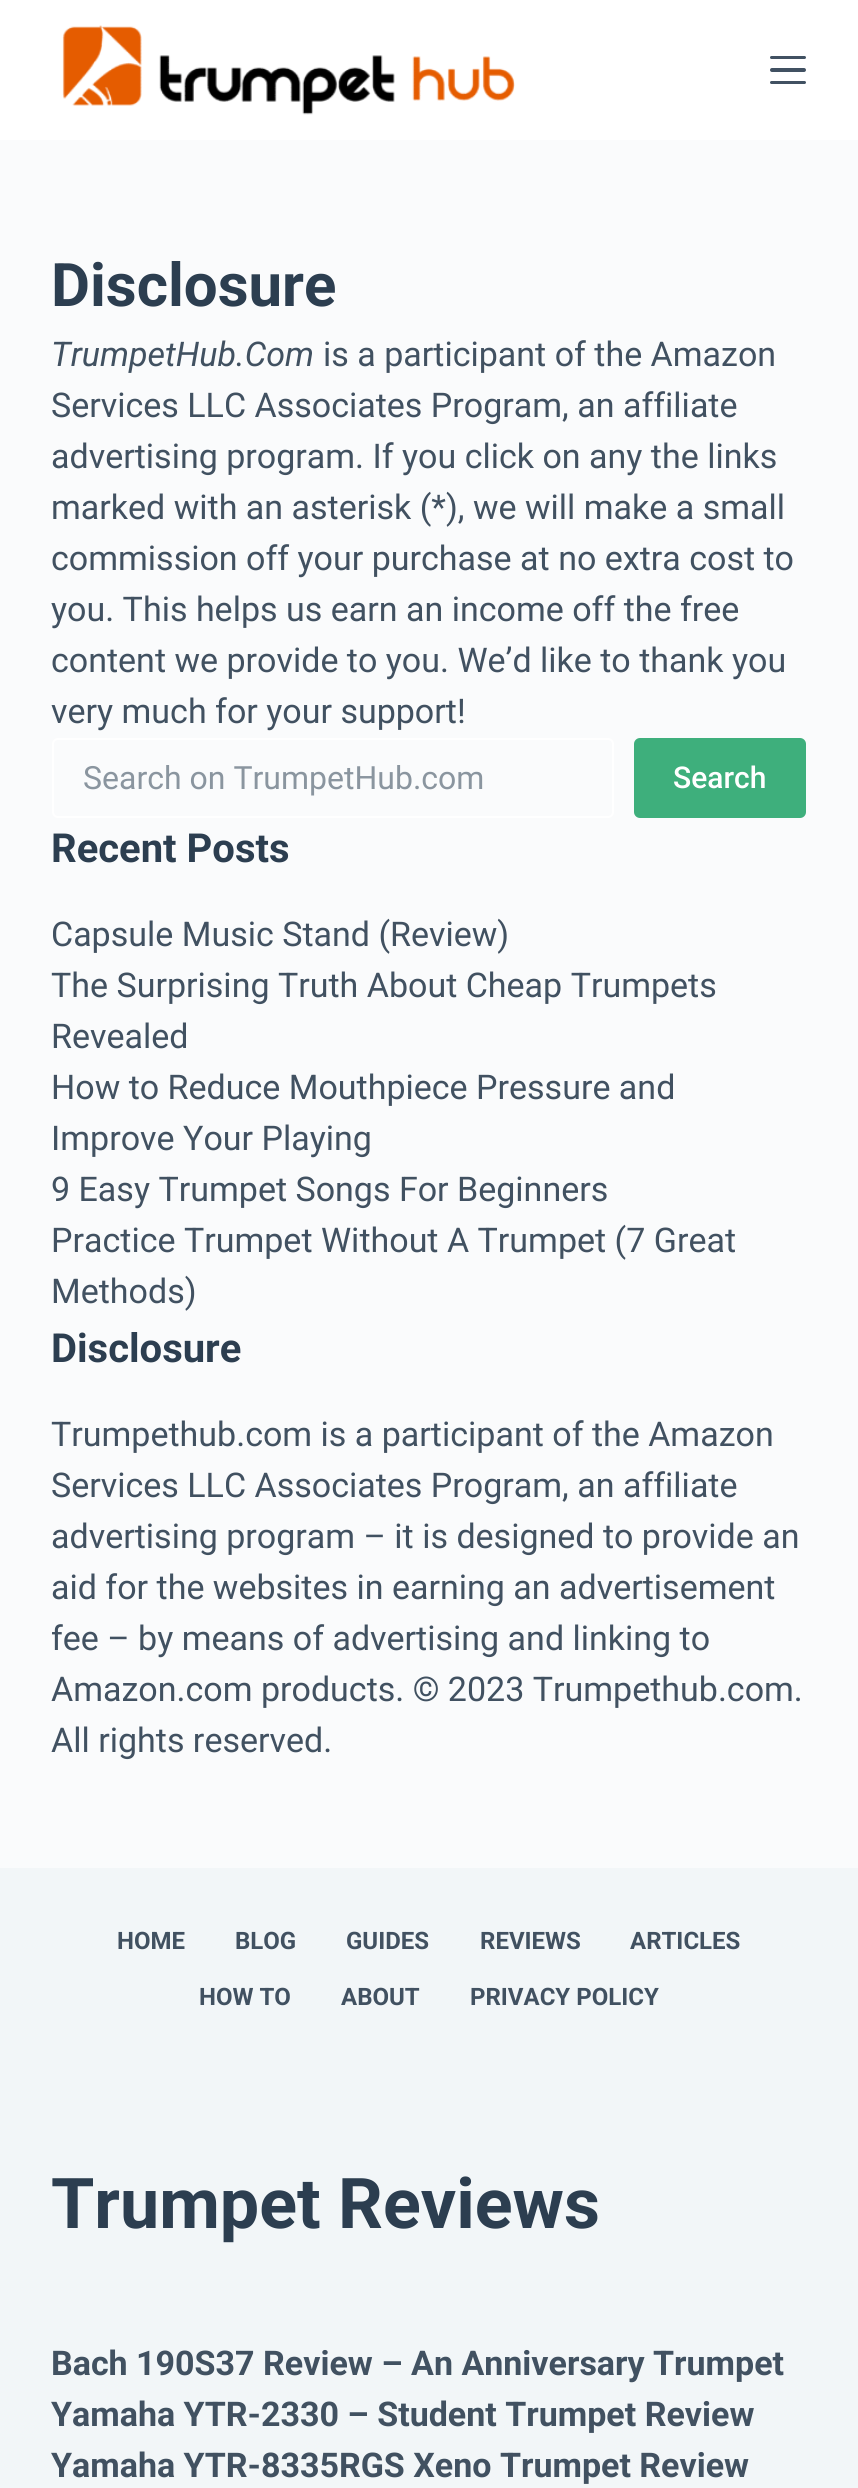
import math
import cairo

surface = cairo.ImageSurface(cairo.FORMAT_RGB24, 858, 2488)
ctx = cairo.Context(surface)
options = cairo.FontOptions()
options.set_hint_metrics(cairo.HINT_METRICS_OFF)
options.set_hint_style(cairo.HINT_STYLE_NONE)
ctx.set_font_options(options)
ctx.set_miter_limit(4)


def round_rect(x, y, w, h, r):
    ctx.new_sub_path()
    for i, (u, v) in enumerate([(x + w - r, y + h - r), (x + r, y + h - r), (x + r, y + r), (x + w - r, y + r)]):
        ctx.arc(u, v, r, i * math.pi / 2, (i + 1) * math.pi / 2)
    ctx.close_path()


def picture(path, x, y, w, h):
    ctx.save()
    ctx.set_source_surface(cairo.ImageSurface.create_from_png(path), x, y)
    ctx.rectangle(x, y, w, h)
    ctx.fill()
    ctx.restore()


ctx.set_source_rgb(0.98, 0.984, 0.988)
ctx.paint()
ctx.set_source_rgb(1, 1, 1)
ctx.rectangle(0, 0, 858, 140)
ctx.fill()
picture("img1.png", 62, 25, 453, 90)
ctx.set_source_rgb(0.255, 0.318, 0.384)
round_rect(770, 56, 36, 3, 1.5)
ctx.fill()
round_rect(770, 68, 36, 4, 2)
ctx.fill()
round_rect(770, 81, 36, 3, 1.5)
ctx.fill()
ctx.select_font_face("Roboto", cairo.FONT_SLANT_NORMAL, cairo.FONT_WEIGHT_BOLD)
ctx.set_font_size(60)
ctx.set_source_rgb(0.173, 0.243, 0.314)
ctx.move_to(51, 306)
ctx.show_text("Disclosure")
ctx.select_font_face("Roboto", cairo.FONT_SLANT_ITALIC)
ctx.set_font_size(34)
ctx.set_source_rgb(0.255, 0.318, 0.38)
ctx.move_to(51, 366)
ctx.show_text("TrumpetHub.Com")
ctx.select_font_face("Roboto")
ctx.move_to(323, 366)
ctx.show_text("is a participant of the Amazon")
ctx.move_to(51, 417)
ctx.show_text("Services LLC Associates Program, an affiliate")
ctx.move_to(51, 468)
ctx.show_text("advertising program. If you click on any the links")
ctx.move_to(51, 519)
ctx.show_text("marked with an asterisk (*), we will make a small")
ctx.move_to(51, 570)
ctx.show_text("commission off your purchase at no extra cost to")
ctx.move_to(51, 621)
ctx.show_text("you. This helps us earn an income off the free")
ctx.move_to(51, 672)
ctx.show_text("content we provide to you. We’d like to thank you")
ctx.move_to(51, 723)
ctx.show_text("very much for your support!")
round_rect(53, 739, 560, 78, 5)
ctx.set_source_rgb(1, 1, 1)
ctx.stroke()
ctx.set_font_size(32)
ctx.set_source_rgb(0.541, 0.584, 0.624)
ctx.move_to(83, 789)
ctx.show_text("Search on TrumpetHub.com")
ctx.set_source_rgb(0.243, 0.686, 0.486)
round_rect(634, 738, 172, 80, 6)
ctx.fill()
ctx.select_font_face("Roboto Medium")
ctx.set_font_size(30)
ctx.set_source_rgb(1, 1, 1)
ctx.move_to(673, 788)
ctx.show_text("Search")
ctx.select_font_face("Roboto", cairo.FONT_SLANT_NORMAL, cairo.FONT_WEIGHT_BOLD)
ctx.set_font_size(40)
ctx.set_source_rgb(0.173, 0.243, 0.314)
ctx.move_to(51, 862)
ctx.show_text("Recent Posts")
ctx.select_font_face("Roboto")
ctx.set_font_size(34)
ctx.set_source_rgb(0.255, 0.318, 0.38)
ctx.move_to(51, 946)
ctx.show_text("Capsule Music Stand (Review)")
ctx.move_to(51, 997)
ctx.show_text("The Surprising Truth About Cheap Trumpets")
ctx.move_to(51, 1048)
ctx.show_text("Revealed")
ctx.move_to(51, 1099)
ctx.show_text("How to Reduce Mouthpiece Pressure and")
ctx.move_to(51, 1150)
ctx.show_text("Improve Your Playing")
ctx.move_to(51, 1201)
ctx.show_text("9 Easy Trumpet Songs For Beginners")
ctx.move_to(51, 1252)
ctx.show_text("Practice Trumpet Without A Trumpet (7 Great")
ctx.move_to(51, 1303)
ctx.show_text("Methods)")
ctx.select_font_face("Roboto", cairo.FONT_SLANT_NORMAL, cairo.FONT_WEIGHT_BOLD)
ctx.set_font_size(40)
ctx.set_source_rgb(0.173, 0.243, 0.314)
ctx.move_to(51, 1362)
ctx.show_text("Disclosure")
ctx.select_font_face("Roboto")
ctx.set_font_size(34)
ctx.set_source_rgb(0.255, 0.318, 0.38)
ctx.move_to(51, 1446)
ctx.show_text("Trumpethub.com is a participant of the Amazon")
ctx.move_to(51, 1497)
ctx.show_text("Services LLC Associates Program, an affiliate")
ctx.move_to(51, 1548)
ctx.show_text("advertising program – it is designed to provide an")
ctx.move_to(51, 1599)
ctx.show_text("aid for the websites in earning an advertisement")
ctx.move_to(51, 1650)
ctx.show_text("fee – by means of advertising and linking to")
ctx.move_to(51, 1701)
ctx.show_text("Amazon.com products. © 2023 Trumpethub.com.")
ctx.move_to(51, 1752)
ctx.show_text("All rights reserved.")
ctx.set_source_rgb(0.949, 0.961, 0.969)
ctx.rectangle(0, 1868, 858, 620)
ctx.fill()
ctx.select_font_face("Roboto", cairo.FONT_SLANT_NORMAL, cairo.FONT_WEIGHT_BOLD)
ctx.set_font_size(24)
ctx.set_source_rgb(0.255, 0.318, 0.38)
ctx.move_to(117, 1949)
ctx.show_text("HOME")
ctx.move_to(235, 1949)
ctx.show_text("BLOG")
ctx.move_to(346, 1949)
ctx.show_text("GUIDES")
ctx.move_to(480, 1949)
ctx.show_text("REVIEWS")
ctx.move_to(630, 1949)
ctx.show_text("ARTICLES")
ctx.move_to(199, 2005)
ctx.show_text("HOW TO")
ctx.move_to(341, 2005)
ctx.show_text("ABOUT")
ctx.move_to(470, 2005)
ctx.show_text("PRIVACY POLICY")
ctx.set_font_size(70)
ctx.set_source_rgb(0.173, 0.243, 0.314)
ctx.move_to(51, 2228)
ctx.show_text("Trumpet Reviews")
ctx.set_font_size(34)
ctx.set_source_rgb(0.255, 0.318, 0.38)
ctx.move_to(51, 2375)
ctx.show_text("Bach 190S37 Review – An Anniversary Trumpet")
ctx.move_to(51, 2426)
ctx.show_text("Yamaha YTR-2330 – Student Trumpet Review")
ctx.move_to(51, 2477)
ctx.show_text("Yamaha YTR-8335RGS Xeno Trumpet Review")
surface.write_to_png("page.png")
